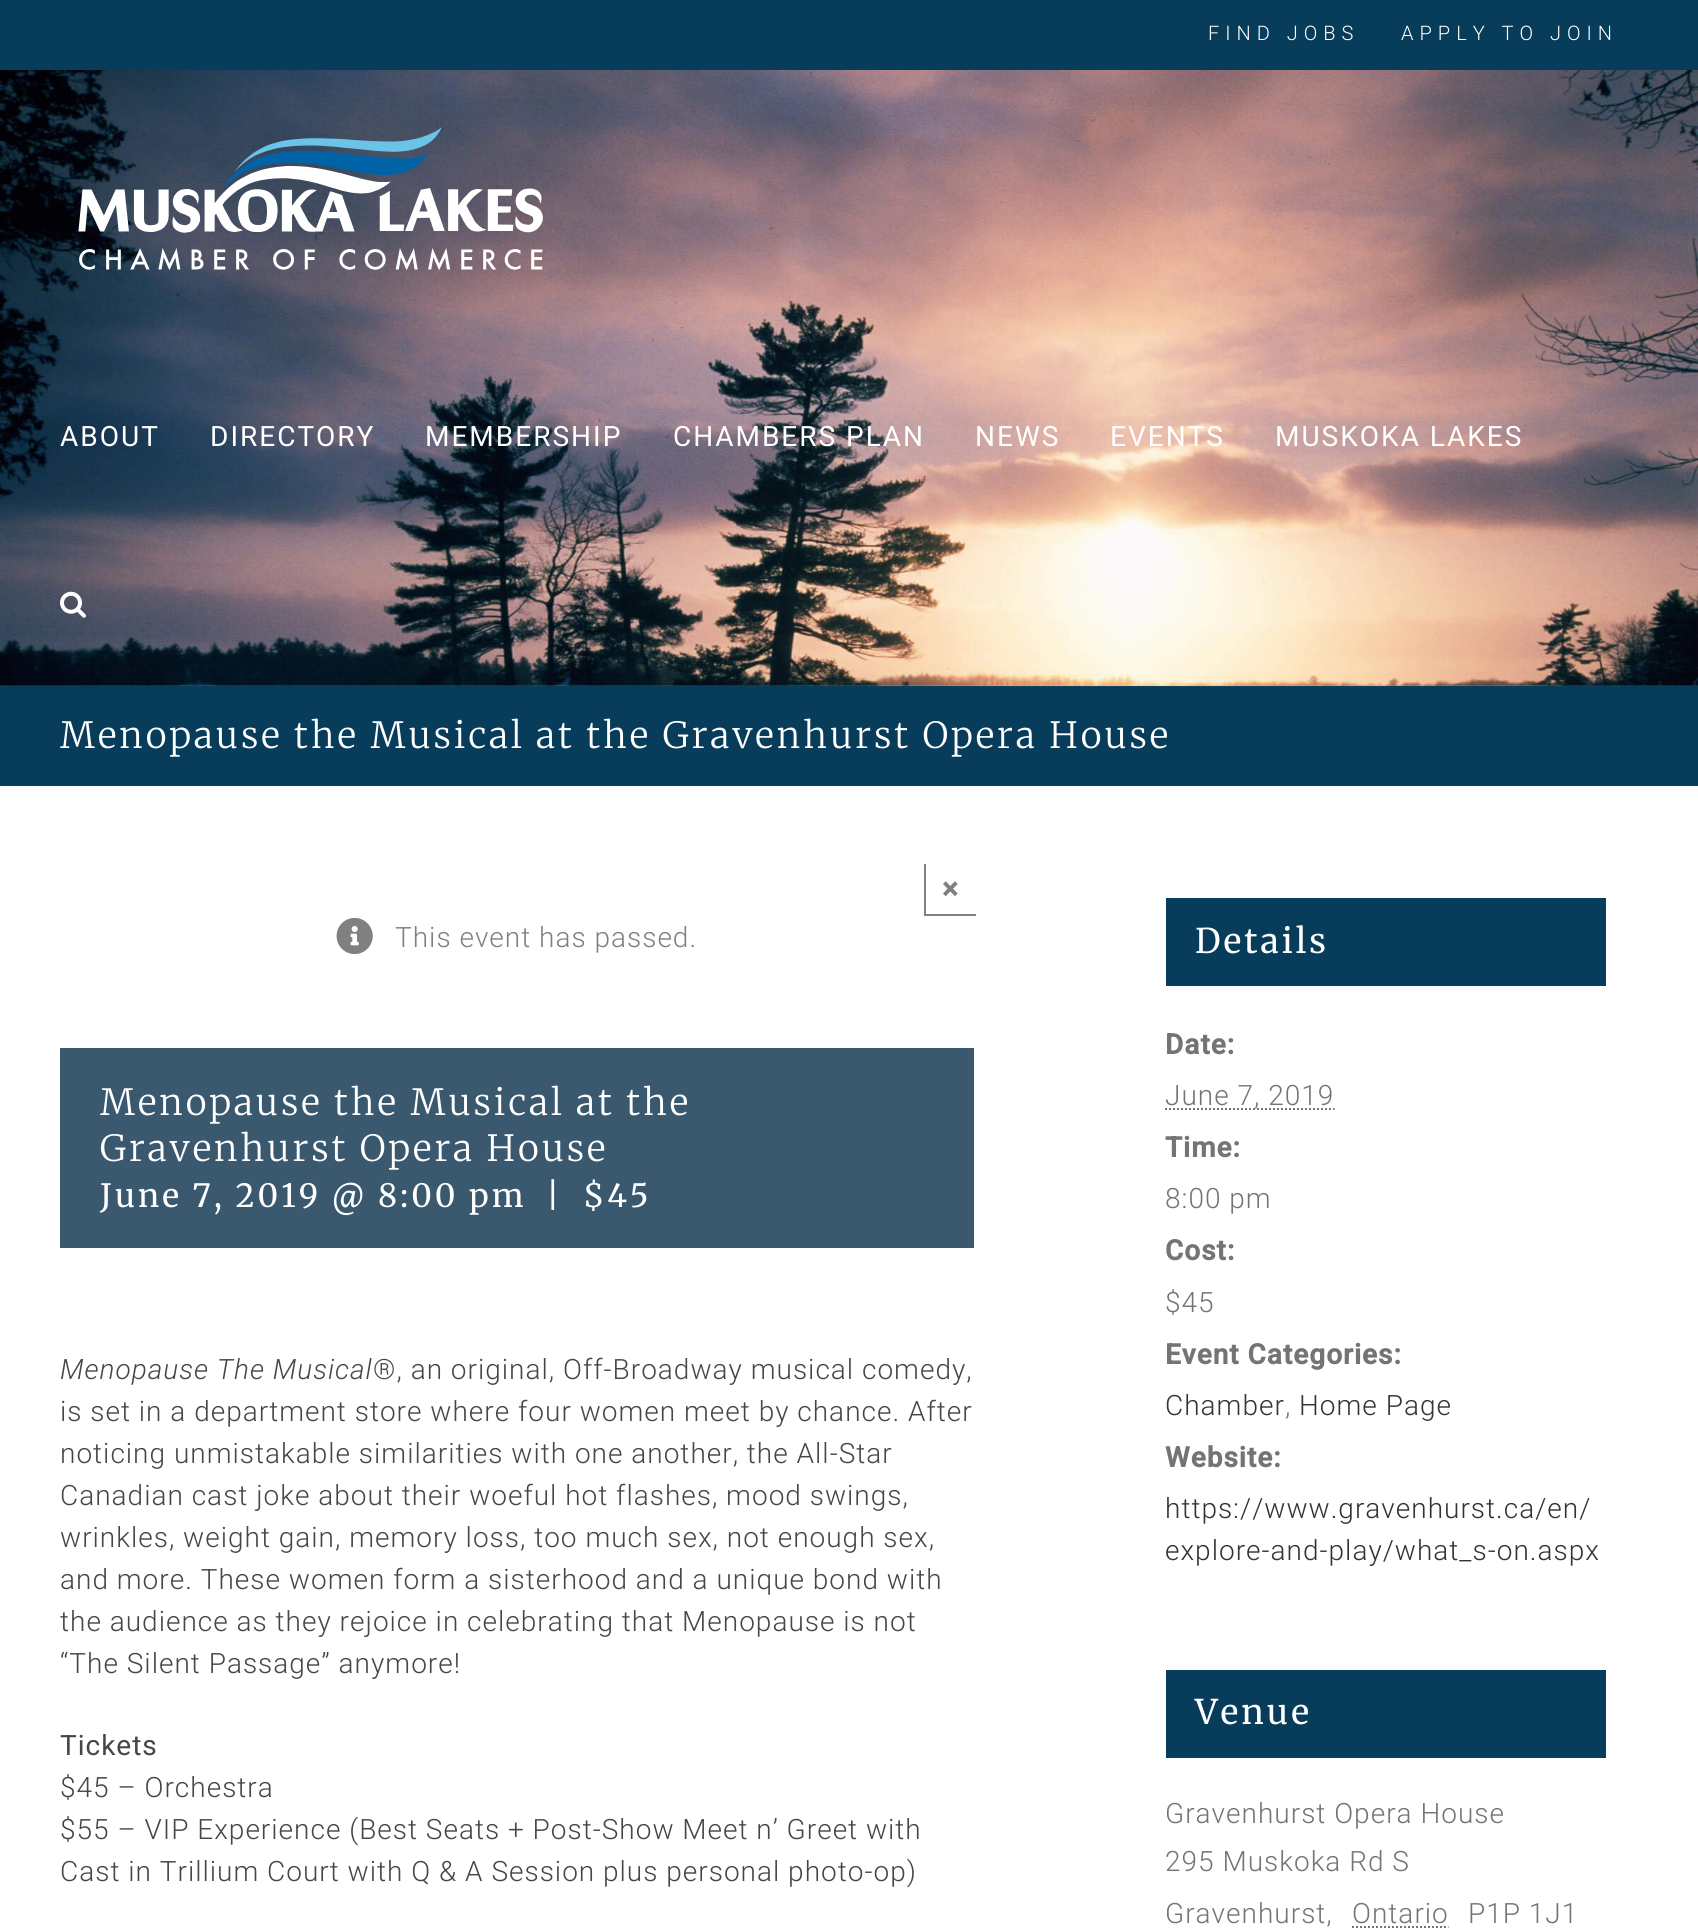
import math
import cairo

surface = cairo.ImageSurface(cairo.FORMAT_RGB24, 1698, 1930)
ctx = cairo.Context(surface)
options = cairo.FontOptions()
options.set_hint_metrics(cairo.HINT_METRICS_OFF)
options.set_hint_style(cairo.HINT_STYLE_NONE)
ctx.set_font_options(options)
ctx.set_miter_limit(4)


def spaced_text(x, y, s, letter, word):
    ctx.move_to(x, y)
    for ch in s:
        ctx.show_text(ch)
        ctx.rel_move_to(letter + word * (ch == ' '), 0)


def picture(path, x, y, w, h):
    ctx.save()
    ctx.set_source_surface(cairo.ImageSurface.create_from_png(path), x, y)
    ctx.rectangle(x, y, w, h)
    ctx.fill()
    ctx.restore()


ctx.set_source_rgb(1, 1, 1)
ctx.paint()
ctx.set_source_rgb(0.031, 0.239, 0.353)
ctx.rectangle(0, 0, 1698, 70)
ctx.fill()
ctx.select_font_face("Roboto Light")
ctx.set_font_size(20)
ctx.set_source_rgb(1, 1, 1)
spaced_text(1208, 40, "FIND JOBS", 6, 0)
spaced_text(1401, 40, "APPLY TO JOIN", 6, 0)
ctx.set_source_rgb(0.031, 0.239, 0.353)
ctx.rectangle(0, 686, 1698, 100)
ctx.fill()
picture("img1.png", 0, 70, 1698, 617)
picture("img2.png", 78, 127, 465, 144)
ctx.select_font_face("Roboto")
ctx.set_font_size(28)
ctx.set_source_rgb(1, 1, 1)
spaced_text(60, 446, "ABOUT", 2, 0)
spaced_text(210, 446, "DIRECTORY", 2, 0)
spaced_text(425, 446, "MEMBERSHIP", 2, 0)
spaced_text(673, 446, "CHAMBERS PLAN", 2, 0)
spaced_text(975, 446, "NEWS", 2, 0)
spaced_text(1110, 446, "EVENTS", 2, 0)
spaced_text(1275, 446, "MUSKOKA LAKES", 2, 0)
picture("img3.png", 60, 591, 26, 27)
ctx.select_font_face("Merriweather Light")
ctx.set_font_size(36)
spaced_text(60, 748, "Menopause the Musical at the Gravenhurst Opera House", 3, 0)
ctx.set_source_rgb(0.502, 0.502, 0.502)
ctx.rectangle(924, 914, 52, 2)
ctx.fill()
ctx.rectangle(924, 864, 2, 52)
ctx.fill()
ctx.select_font_face("Roboto", cairo.FONT_SLANT_NORMAL, cairo.FONT_WEIGHT_BOLD)
ctx.set_font_size(30)
ctx.move_to(942, 899)
ctx.show_text("×")
picture("img4.png", 336, 917, 37, 38)
ctx.select_font_face("Roboto Light")
ctx.set_font_size(28)
spaced_text(395, 947, "This event has passed.", 1, 0)
ctx.set_source_rgb(0.227, 0.349, 0.435)
ctx.rectangle(60, 1048, 914, 200)
ctx.fill()
ctx.select_font_face("Merriweather Light")
ctx.set_font_size(36)
ctx.set_source_rgb(1, 1, 1)
spaced_text(100, 1115, "Menopause the Musical at the", 3, 0)
spaced_text(100, 1161, "Gravenhurst Opera House", 3, 0)
ctx.select_font_face("Merriweather")
ctx.set_font_size(32)
spaced_text(100, 1207, "June 7, 2019 @ 8:00 pm", 3, 0)
spaced_text(546, 1207, "|", 3, 0)
spaced_text(583, 1207, "$45", 3, 0)
ctx.select_font_face("Roboto Light", cairo.FONT_SLANT_ITALIC)
ctx.set_font_size(28)
ctx.set_source_rgb(0.275, 0.275, 0.275)
spaced_text(60, 1379, "Menopause The Musical", 1, 0)
ctx.select_font_face("Roboto Light")
spaced_text(373, 1379, "®, an original, Off-Broadway musical comedy,", 1, 0)
spaced_text(60, 1421, "is set in a department store where four women meet by chance. After", 1, 0)
spaced_text(60, 1463, "noticing unmistakable similarities with one another, the All-Star", 1, 0)
spaced_text(60, 1505, "Canadian cast joke about their woeful hot flashes, mood swings,", 1, 0)
spaced_text(60, 1547, "wrinkles, weight gain, memory loss, too much sex, not enough sex,", 1, 0)
spaced_text(60, 1589, "and more. These women form a sisterhood and a unique bond with", 1, 0)
spaced_text(60, 1631, "the audience as they rejoice in celebrating that Menopause is not", 1, 0)
spaced_text(60, 1673, "“The Silent Passage” anymore!", 1, 0)
ctx.select_font_face("Roboto")
spaced_text(60, 1755, "Tickets", 1, 0)
ctx.select_font_face("Roboto Light")
spaced_text(60, 1797, "$45 – Orchestra", 1, 0)
spaced_text(60, 1839, "$55 – VIP Experience (Best Seats + Post-Show Meet n’ Greet with", 1, 0)
spaced_text(60, 1881, "Cast in Trillium Court with Q & A Session plus personal photo-op)", 1, 0)
ctx.set_source_rgb(0.031, 0.239, 0.353)
ctx.rectangle(1166, 898, 440, 88)
ctx.fill()
ctx.select_font_face("Merriweather")
ctx.set_font_size(34)
ctx.set_source_rgb(1, 1, 1)
spaced_text(1195, 953, "Details", 3, 0)
ctx.select_font_face("Roboto", cairo.FONT_SLANT_NORMAL, cairo.FONT_WEIGHT_BOLD)
ctx.set_font_size(28)
ctx.set_source_rgb(0.455, 0.455, 0.455)
spaced_text(1165, 1054, "Date:", 1, 0)
ctx.new_path()
ctx.move_to(1165, 1109)
ctx.line_to(1334.5, 1109)
ctx.set_dash([2, 2])
ctx.stroke()
ctx.select_font_face("Roboto Light")
spaced_text(1165, 1105, "June 7, 2019", 1, 0)
ctx.select_font_face("Roboto", cairo.FONT_SLANT_NORMAL, cairo.FONT_WEIGHT_BOLD)
spaced_text(1165, 1157, "Time:", 1, 0)
ctx.select_font_face("Roboto Light")
spaced_text(1165, 1208, "8:00 pm", 1, 0)
ctx.select_font_face("Roboto", cairo.FONT_SLANT_NORMAL, cairo.FONT_WEIGHT_BOLD)
spaced_text(1165, 1260, "Cost:", 1, 0)
ctx.select_font_face("Roboto Light")
spaced_text(1165, 1312, "$45", 1, 0)
ctx.select_font_face("Roboto", cairo.FONT_SLANT_NORMAL, cairo.FONT_WEIGHT_BOLD)
spaced_text(1165, 1364, "Event Categories:", 1, 0)
ctx.select_font_face("Roboto Light")
ctx.set_source_rgb(0.2, 0.2, 0.2)
spaced_text(1165, 1415, "Chamber", 1, 0)
ctx.set_source_rgb(0.455, 0.455, 0.455)
spaced_text(1285, 1415, ",", 1, 0)
ctx.set_source_rgb(0.2, 0.2, 0.2)
spaced_text(1299, 1415, "Home Page", 1, 0)
ctx.select_font_face("Roboto", cairo.FONT_SLANT_NORMAL, cairo.FONT_WEIGHT_BOLD)
ctx.set_source_rgb(0.455, 0.455, 0.455)
spaced_text(1165, 1467, "Website:", 1, 0)
ctx.select_font_face("Roboto Light")
ctx.set_source_rgb(0.2, 0.2, 0.2)
spaced_text(1165, 1518, "https://www.gravenhurst.ca/en/", 1, 0)
spaced_text(1165, 1560, "explore-and-play/what_s-on.aspx", 1, 0)
ctx.set_source_rgb(0.031, 0.239, 0.353)
ctx.rectangle(1166, 1670, 440, 88)
ctx.fill()
ctx.select_font_face("Merriweather")
ctx.set_font_size(34)
ctx.set_source_rgb(1, 1, 1)
spaced_text(1195, 1724, "Venue", 3, 0)
ctx.select_font_face("Roboto Light")
ctx.set_font_size(28)
ctx.set_source_rgb(0.455, 0.455, 0.455)
spaced_text(1165, 1823, "Gravenhurst Opera House", 1, 0)
spaced_text(1165, 1871, "295 Muskoka Rd S", 1, 0)
spaced_text(1165, 1923, "Gravenhurst,", 1, 0)
spaced_text(1352, 1923, "Ontario", 1, 0)
ctx.new_path()
ctx.move_to(1352, 1927)
ctx.line_to(1448.5, 1927)
ctx.stroke()
spaced_text(1468, 1923, "P1P 1J1", 1, 0)
surface.write_to_png("page.png")
